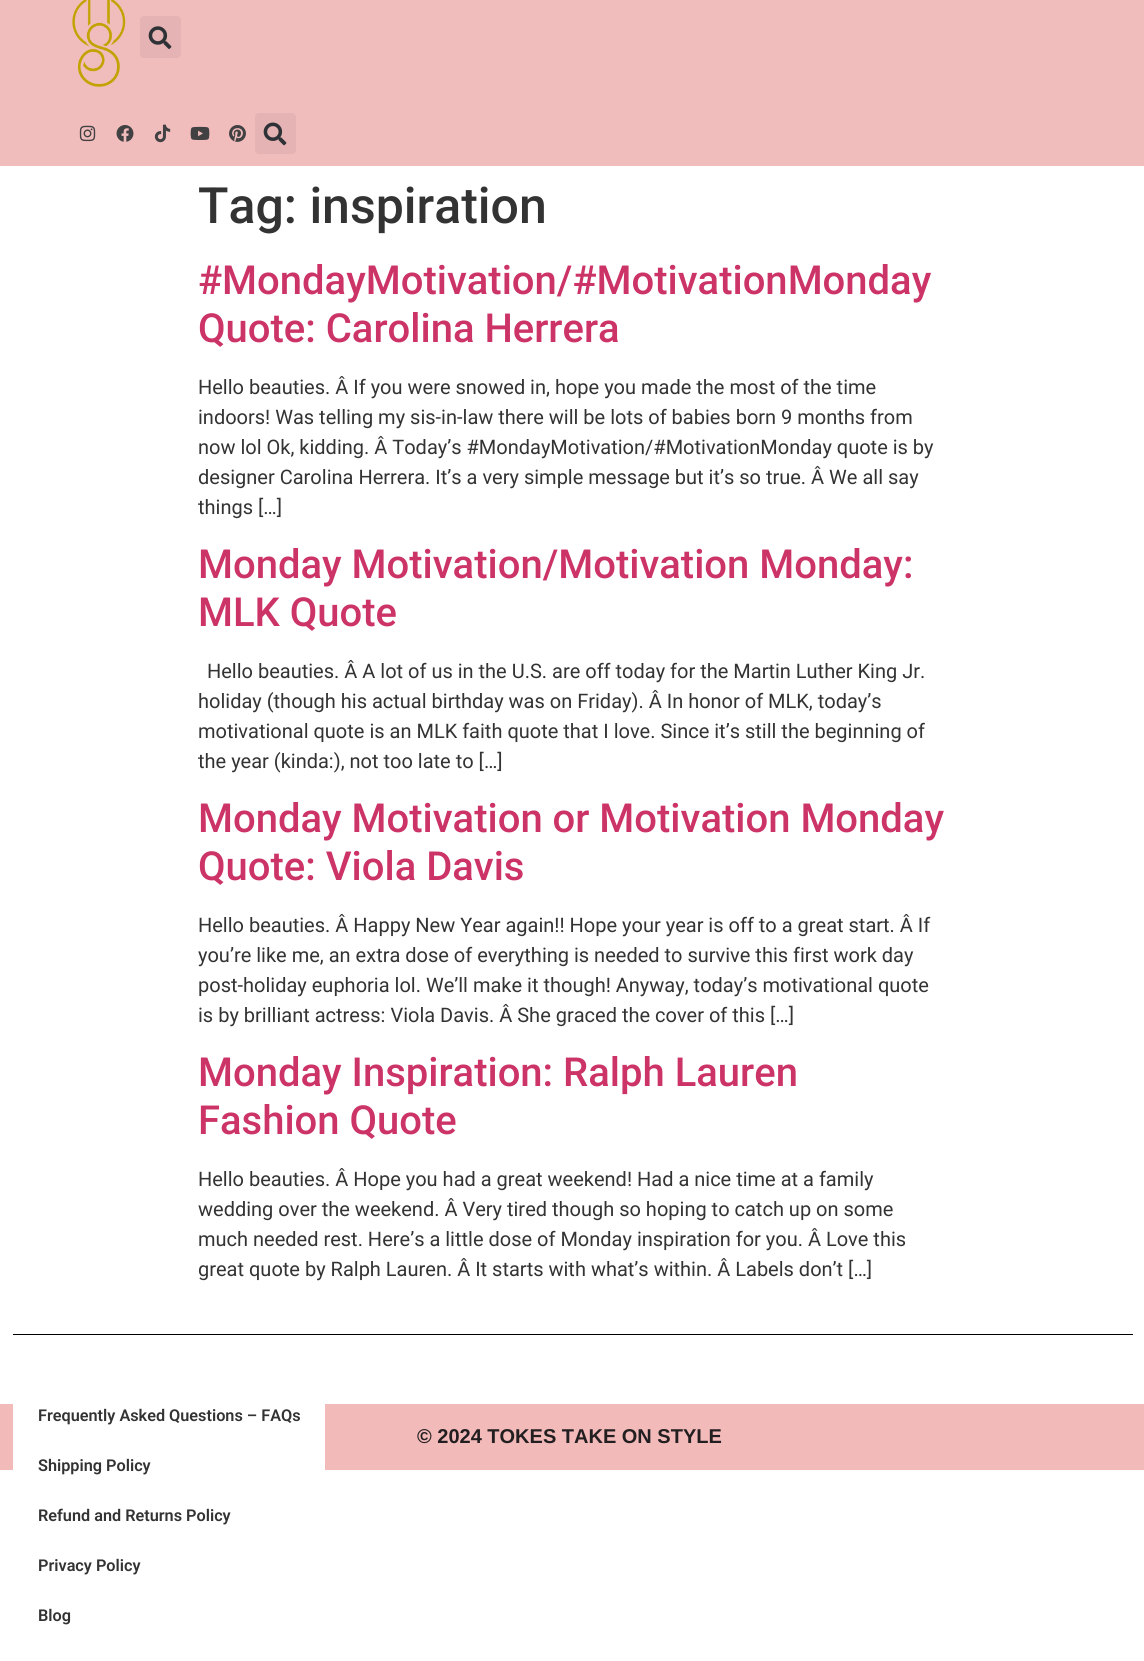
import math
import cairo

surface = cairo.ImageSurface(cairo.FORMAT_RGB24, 1144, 1661)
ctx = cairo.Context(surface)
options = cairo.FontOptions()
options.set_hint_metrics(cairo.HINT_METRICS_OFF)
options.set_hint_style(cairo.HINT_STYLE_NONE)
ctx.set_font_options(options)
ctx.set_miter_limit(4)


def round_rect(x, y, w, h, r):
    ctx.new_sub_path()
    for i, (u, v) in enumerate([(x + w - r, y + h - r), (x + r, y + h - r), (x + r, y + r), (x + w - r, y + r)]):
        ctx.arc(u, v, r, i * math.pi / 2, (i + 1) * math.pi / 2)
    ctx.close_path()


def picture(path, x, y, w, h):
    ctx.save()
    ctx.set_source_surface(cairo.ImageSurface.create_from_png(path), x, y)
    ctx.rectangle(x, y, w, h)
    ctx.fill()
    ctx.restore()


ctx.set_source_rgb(1, 1, 1)
ctx.paint()
ctx.set_source_rgb(0.945, 0.737, 0.737)
ctx.rectangle(0, 0, 1144, 166)
ctx.fill()
picture("img1.png", 72, 0, 54, 87)
ctx.set_source_rgb(0.898, 0.702, 0.702)
round_rect(140, 16, 41, 42, 4)
ctx.fill()
picture("img2.png", 148, 26, 24, 23)
picture("img3.png", 79, 125, 17, 17)
picture("img4.png", 116, 125, 18, 17)
picture("img5.png", 154, 124, 17, 19)
picture("img6.png", 190, 126, 20, 14)
picture("img7.png", 229, 125, 17, 17)
round_rect(255, 113, 41, 41, 4)
ctx.fill()
picture("img8.png", 263, 122, 24, 24)
ctx.select_font_face("Roboto Medium")
ctx.set_font_size(50)
ctx.set_source_rgb(0.2, 0.2, 0.2)
ctx.move_to(198, 223)
ctx.show_text("Tag: inspiration")
ctx.set_font_size(40)
ctx.set_source_rgb(0.8, 0.2, 0.4)
ctx.move_to(198, 294)
ctx.show_text("#MondayMotivation/#MotivationMonday")
ctx.move_to(198, 342)
ctx.show_text("Quote: Carolina Herrera")
ctx.select_font_face("Roboto")
ctx.set_font_size(20)
ctx.set_source_rgb(0.2, 0.2, 0.2)
ctx.move_to(198, 394)
ctx.show_text("Hello beauties. Â If you were snowed in, hope you made the most of the time")
ctx.move_to(198, 424)
ctx.show_text("indoors! Was telling my sis-in-law there will be lots of babies born 9 months from")
ctx.move_to(198, 454)
ctx.show_text("now lol Ok, kidding. Â Today’s #MondayMotivation/#MotivationMonday quote is by")
ctx.move_to(198, 484)
ctx.show_text("designer Carolina Herrera. It’s a very simple message but it’s so true. Â We all say")
ctx.move_to(198, 514)
ctx.show_text("things […]")
ctx.select_font_face("Roboto Medium")
ctx.set_font_size(40)
ctx.set_source_rgb(0.8, 0.2, 0.4)
ctx.move_to(198, 578)
ctx.show_text("Monday Motivation/Motivation Monday:")
ctx.move_to(198, 626)
ctx.show_text("MLK Quote")
ctx.select_font_face("Roboto")
ctx.set_font_size(20)
ctx.set_source_rgb(0.2, 0.2, 0.2)
ctx.move_to(207, 678)
ctx.show_text("Hello beauties. Â A lot of us in the U.S. are off today for the Martin Luther King Jr.")
ctx.move_to(198, 708)
ctx.show_text("holiday (though his actual birthday was on Friday). Â In honor of MLK, today’s")
ctx.move_to(198, 738)
ctx.show_text("motivational quote is an MLK faith quote that I love. Since it’s still the beginning of")
ctx.move_to(198, 768)
ctx.show_text("the year (kinda:), not too late to […]")
ctx.select_font_face("Roboto Medium")
ctx.set_font_size(40)
ctx.set_source_rgb(0.8, 0.2, 0.4)
ctx.move_to(198, 832)
ctx.show_text("Monday Motivation or Motivation Monday")
ctx.move_to(198, 880)
ctx.show_text("Quote: Viola Davis")
ctx.select_font_face("Roboto")
ctx.set_font_size(20)
ctx.set_source_rgb(0.2, 0.2, 0.2)
ctx.move_to(198, 932)
ctx.show_text("Hello beauties. Â Happy New Year again!! Hope your year is off to a great start. Â If")
ctx.move_to(198, 962)
ctx.show_text("you’re like me, an extra dose of everything is needed to survive this first work day")
ctx.move_to(198, 992)
ctx.show_text("post-holiday euphoria lol. We’ll make it though! Anyway, today’s motivational quote")
ctx.move_to(198, 1022)
ctx.show_text("is by brilliant actress: Viola Davis. Â She graced the cover of this […]")
ctx.select_font_face("Roboto Medium")
ctx.set_font_size(40)
ctx.set_source_rgb(0.8, 0.2, 0.4)
ctx.move_to(198, 1086)
ctx.show_text("Monday Inspiration: Ralph Lauren")
ctx.move_to(198, 1134)
ctx.show_text("Fashion Quote")
ctx.select_font_face("Roboto")
ctx.set_font_size(20)
ctx.set_source_rgb(0.2, 0.2, 0.2)
ctx.move_to(198, 1186)
ctx.show_text("Hello beauties. Â Hope you had a great weekend! Had a nice time at a family")
ctx.move_to(198, 1216)
ctx.show_text("wedding over the weekend. Â Very tired though so hoping to catch up on some")
ctx.move_to(198, 1246)
ctx.show_text("much needed rest. Here’s a little dose of Monday inspiration for you. Â Love this")
ctx.move_to(198, 1276)
ctx.show_text("great quote by Ralph Lauren. Â It starts with what’s within. Â Labels don’t […]")
ctx.set_source_rgb(0, 0, 0)
ctx.rectangle(13, 1334, 1120, 1)
ctx.fill()
ctx.set_source_rgb(0.953, 0.729, 0.729)
ctx.rectangle(0, 1404, 1144, 66)
ctx.fill()
ctx.set_source_rgb(1, 1, 1)
ctx.rectangle(13, 1404, 312, 66)
ctx.fill()
ctx.select_font_face("Roboto SemiBold")
ctx.set_font_size(16.25)
ctx.set_source_rgb(0.2, 0.2, 0.2)
ctx.move_to(38, 1421)
ctx.show_text("Frequently Asked Questions – FAQs")
ctx.move_to(38, 1471)
ctx.show_text("Shipping Policy")
ctx.move_to(38, 1521)
ctx.show_text("Refund and Returns Policy")
ctx.move_to(38, 1571)
ctx.show_text("Privacy Policy")
ctx.move_to(38, 1621)
ctx.show_text("Blog")
ctx.select_font_face("Liberation Sans", cairo.FONT_SLANT_NORMAL, cairo.FONT_WEIGHT_BOLD)
ctx.set_font_size(20)
ctx.set_source_rgb(0.137, 0.122, 0.125)
ctx.move_to(417, 1443)
ctx.show_text("© 2024 TOKES TAKE ON STYLE")
surface.write_to_png("page.png")
